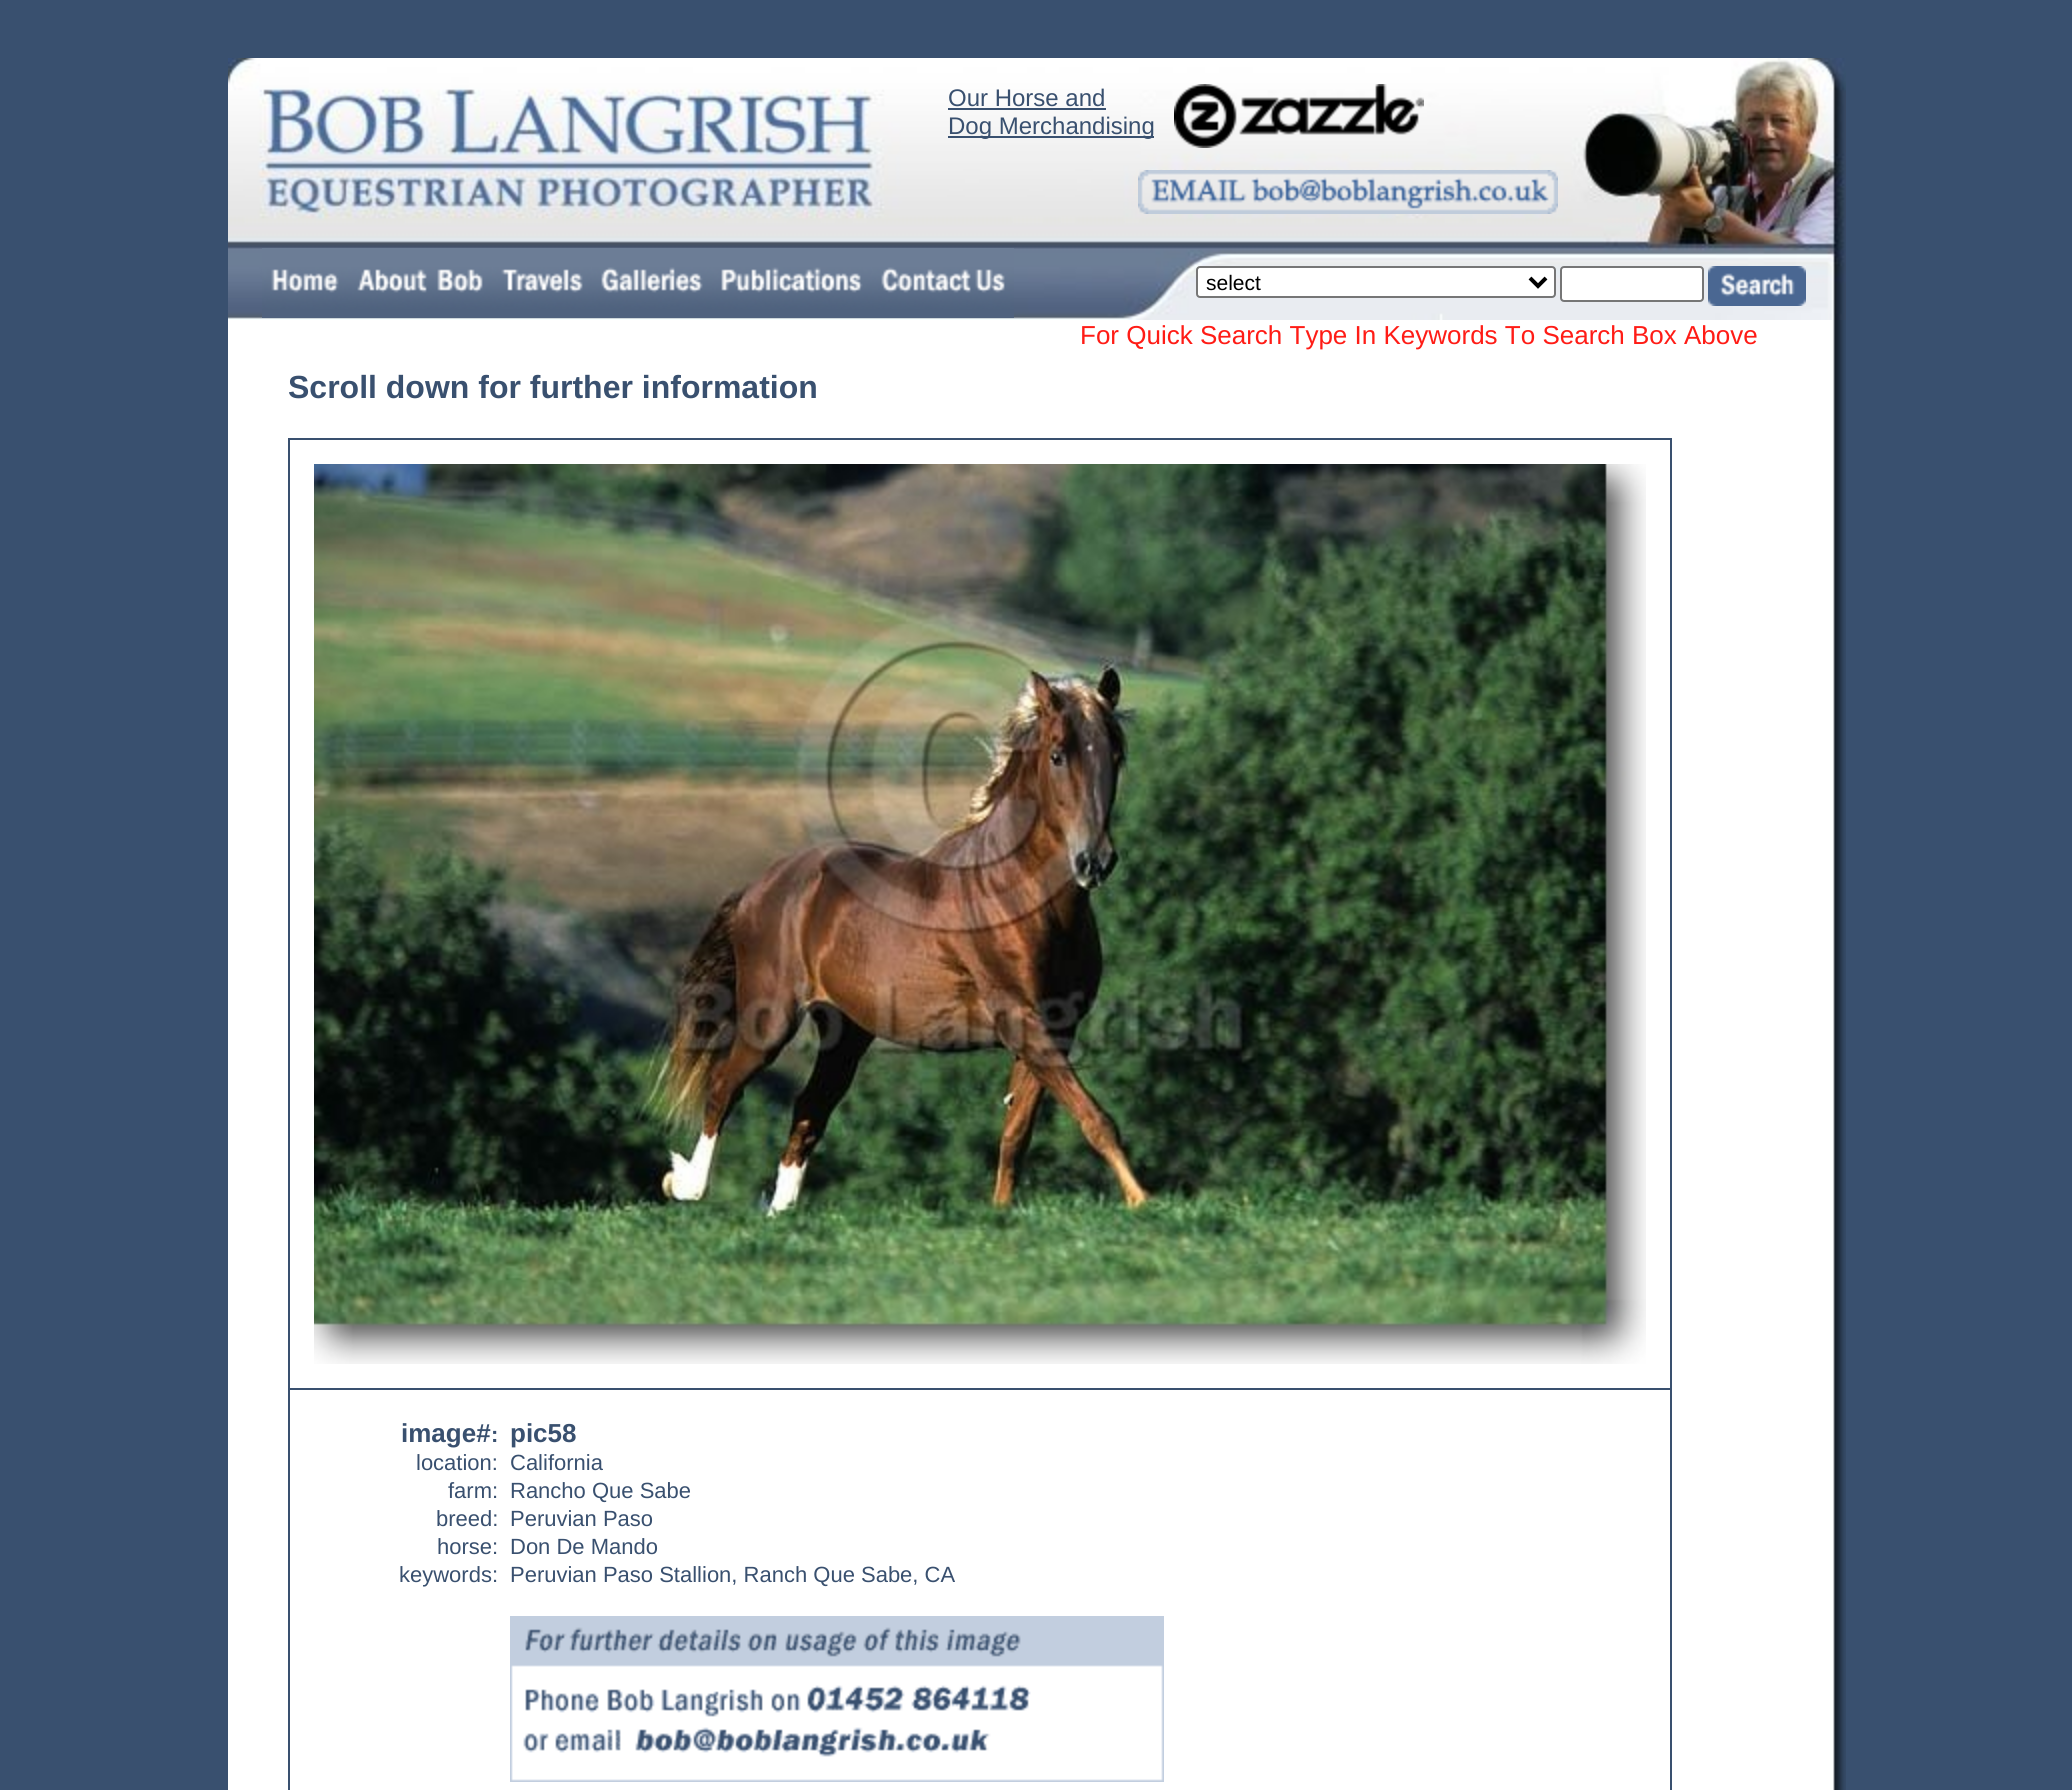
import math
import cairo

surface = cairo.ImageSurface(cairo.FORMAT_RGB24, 2072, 1790)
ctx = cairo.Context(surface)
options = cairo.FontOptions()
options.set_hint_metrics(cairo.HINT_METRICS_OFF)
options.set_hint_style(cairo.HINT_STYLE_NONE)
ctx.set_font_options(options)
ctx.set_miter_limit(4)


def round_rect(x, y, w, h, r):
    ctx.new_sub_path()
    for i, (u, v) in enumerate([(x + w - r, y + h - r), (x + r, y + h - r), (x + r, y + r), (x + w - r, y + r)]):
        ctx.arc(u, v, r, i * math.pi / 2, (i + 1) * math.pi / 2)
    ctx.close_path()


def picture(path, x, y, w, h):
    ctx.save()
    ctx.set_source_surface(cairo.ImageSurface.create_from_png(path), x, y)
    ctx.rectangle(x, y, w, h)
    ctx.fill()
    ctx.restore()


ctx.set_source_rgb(0.224, 0.314, 0.435)
ctx.paint()
picture("img1.png", 228, 58, 1618, 262)
ctx.select_font_face("Liberation Sans")
ctx.set_font_size(24)
ctx.set_source_rgb(0.224, 0.314, 0.435)
ctx.move_to(948, 106)
ctx.show_text("Our Horse and")
ctx.rectangle(948, 108, 158, 2)
ctx.fill()
ctx.rectangle(948, 136, 206, 2)
ctx.fill()
ctx.move_to(948, 134)
ctx.show_text("Dog Merchandising")
picture("img2.png", 1174, 84, 250, 64)
picture("img3.png", 1138, 170, 420, 44)
picture("img4.png", 262, 248, 86, 70)
picture("img5.png", 348, 248, 144, 70)
picture("img6.png", 492, 248, 100, 70)
picture("img7.png", 592, 248, 120, 70)
picture("img8.png", 712, 248, 160, 70)
picture("img9.png", 872, 248, 142, 70)
ctx.set_source_rgb(1, 1, 1)
round_rect(1197, 267, 358, 30, 3)
ctx.fill_preserve()
ctx.set_source_rgb(0.463, 0.463, 0.463)
ctx.stroke()
ctx.new_path()
ctx.move_to(1530, 278)
ctx.line_to(1538, 286)
ctx.line_to(1546, 278)
ctx.set_source_rgb(0, 0, 0)
ctx.set_line_width(4)
ctx.stroke()
ctx.set_font_size(21)
ctx.move_to(1206, 290)
ctx.show_text("select")
ctx.set_source_rgb(1, 1, 1)
round_rect(1561, 267, 142, 34, 3)
ctx.fill_preserve()
ctx.set_source_rgb(0.463, 0.463, 0.463)
ctx.set_line_width(2)
ctx.stroke()
picture("img10.png", 1708, 266, 98, 40)
picture("img11.png", 228, 320, 1618, 1470)
ctx.set_font_size(26)
ctx.set_source_rgb(1, 0.11, 0.086)
ctx.move_to(1080, 344)
ctx.show_text("For Quick Search Type In Keywords To Search Box Above")
ctx.select_font_face("Liberation Sans", cairo.FONT_SLANT_NORMAL, cairo.FONT_WEIGHT_BOLD)
ctx.set_font_size(32)
ctx.set_source_rgb(0.224, 0.314, 0.435)
ctx.move_to(288, 398)
ctx.show_text("Scroll down for further information")
ctx.rectangle(288, 438, 1384, 1352)
ctx.fill()
ctx.set_source_rgb(1, 1, 1)
ctx.rectangle(290, 440, 1380, 948)
ctx.fill()
picture("img12.png", 314, 464, 1332, 900)
ctx.rectangle(290, 1390, 1380, 400)
ctx.fill()
ctx.set_font_size(26)
ctx.set_source_rgb(0.224, 0.314, 0.435)
ctx.move_to(401, 1442)
ctx.show_text("image#")
ctx.set_font_size(22)
ctx.move_to(491, 1442)
ctx.show_text(":")
ctx.select_font_face("Liberation Sans")
ctx.move_to(416, 1470)
ctx.show_text("location:")
ctx.move_to(448, 1498)
ctx.show_text("farm:")
ctx.move_to(436, 1526)
ctx.show_text("breed:")
ctx.move_to(437, 1554)
ctx.show_text("horse:")
ctx.move_to(399, 1582)
ctx.show_text("keywords:")
ctx.select_font_face("Liberation Sans", cairo.FONT_SLANT_NORMAL, cairo.FONT_WEIGHT_BOLD)
ctx.set_font_size(26)
ctx.move_to(510, 1442)
ctx.show_text("pic58")
ctx.select_font_face("Liberation Sans")
ctx.set_font_size(22)
ctx.move_to(510, 1470)
ctx.show_text("California")
ctx.move_to(510, 1498)
ctx.show_text("Rancho Que Sabe")
ctx.move_to(510, 1526)
ctx.show_text("Peruvian Paso")
ctx.move_to(510, 1554)
ctx.show_text("Don De Mando")
ctx.move_to(510, 1582)
ctx.show_text("Peruvian Paso Stallion, Ranch Que Sabe, CA")
picture("img13.png", 510, 1616, 654, 166)
surface.write_to_png("page.png")
